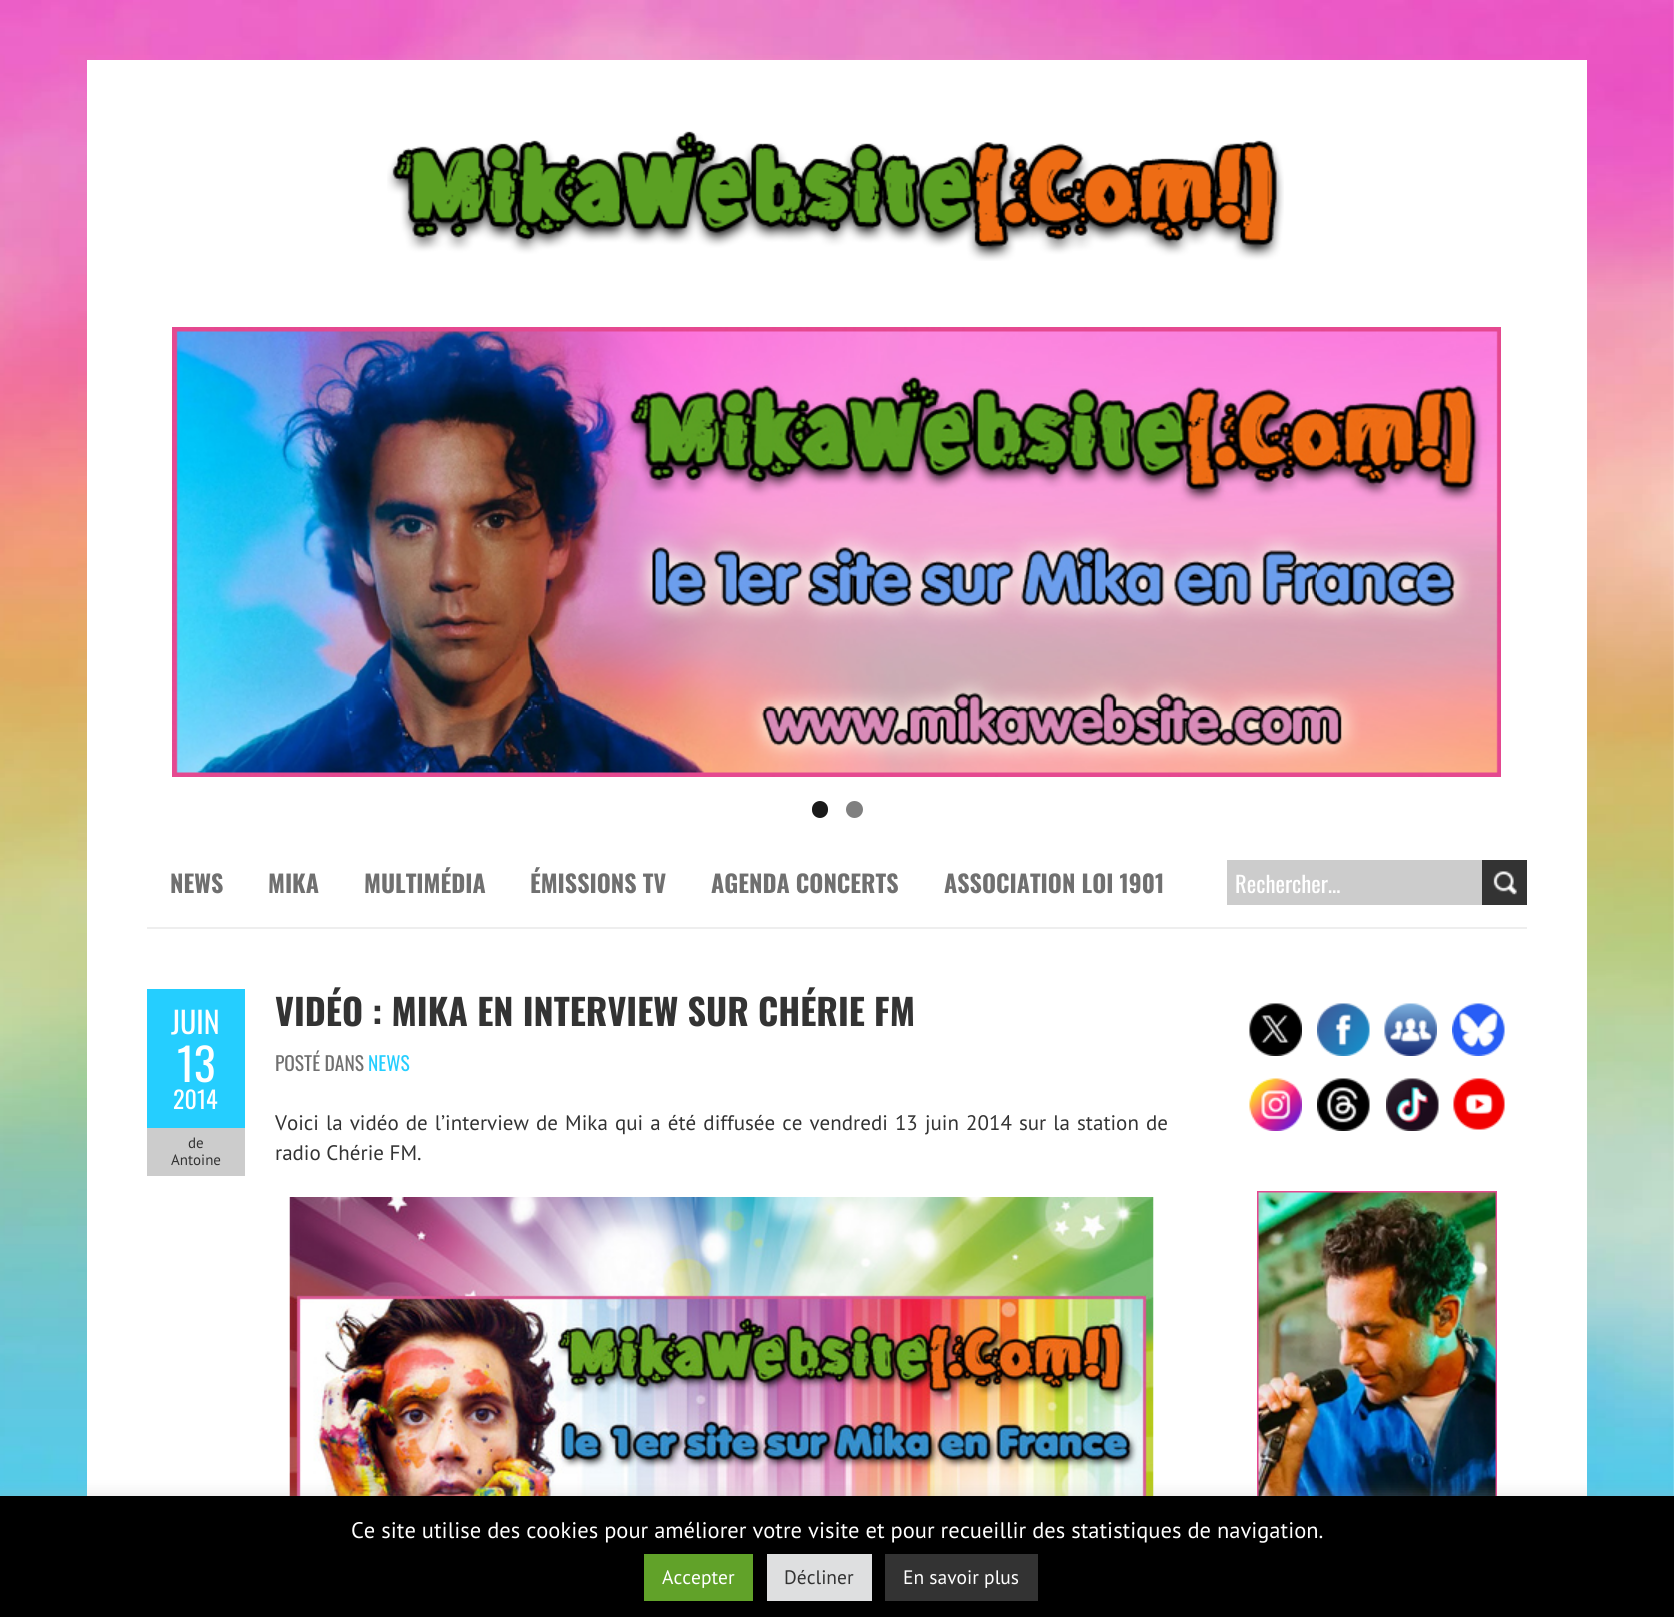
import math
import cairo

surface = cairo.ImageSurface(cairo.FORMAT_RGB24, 1674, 1617)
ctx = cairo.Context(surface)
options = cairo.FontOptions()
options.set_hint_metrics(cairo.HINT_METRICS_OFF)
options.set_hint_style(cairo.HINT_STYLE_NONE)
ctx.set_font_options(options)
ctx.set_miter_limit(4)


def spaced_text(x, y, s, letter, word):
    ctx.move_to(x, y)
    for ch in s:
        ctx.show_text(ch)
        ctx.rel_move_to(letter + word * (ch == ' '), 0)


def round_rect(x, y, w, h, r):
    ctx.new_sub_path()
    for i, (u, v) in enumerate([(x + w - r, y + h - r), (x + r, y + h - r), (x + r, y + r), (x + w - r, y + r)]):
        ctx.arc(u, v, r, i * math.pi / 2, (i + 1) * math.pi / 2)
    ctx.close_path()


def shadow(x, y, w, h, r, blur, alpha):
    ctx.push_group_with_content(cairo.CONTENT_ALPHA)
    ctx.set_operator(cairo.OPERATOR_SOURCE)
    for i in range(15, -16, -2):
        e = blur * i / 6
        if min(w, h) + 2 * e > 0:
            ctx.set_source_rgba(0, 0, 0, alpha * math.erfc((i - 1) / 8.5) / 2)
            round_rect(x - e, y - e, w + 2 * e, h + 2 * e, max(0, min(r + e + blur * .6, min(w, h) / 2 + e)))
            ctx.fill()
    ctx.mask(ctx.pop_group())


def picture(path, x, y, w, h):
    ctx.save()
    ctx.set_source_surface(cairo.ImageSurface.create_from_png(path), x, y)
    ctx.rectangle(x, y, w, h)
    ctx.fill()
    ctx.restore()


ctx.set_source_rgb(1, 1, 1)
ctx.paint()
picture("img1.png", 0, 0, 1674, 1496)
ctx.set_source_rgb(1, 1, 1)
ctx.rectangle(87, 60, 1500, 1436)
ctx.fill()
picture("img2.png", 387, 131, 897, 130)
picture("img3.png", 172, 327, 1329, 450)
ctx.set_source_rgb(0.102, 0.102, 0.102)
round_rect(812, 801, 16, 17, 8)
ctx.fill()
ctx.set_source_rgb(0.502, 0.502, 0.502)
ctx.arc(854.5, 809.5, 8.5, 0, 2 * math.pi)
ctx.fill()
ctx.set_source_rgb(0.933, 0.933, 0.933)
ctx.rectangle(147, 927, 1380, 2)
ctx.fill()
ctx.select_font_face("Oswald", cairo.FONT_SLANT_NORMAL, cairo.FONT_WEIGHT_BOLD)
ctx.set_font_size(24)
ctx.set_source_rgb(0.439, 0.439, 0.439)
ctx.move_to(170, 893)
ctx.show_text("NEWS")
ctx.move_to(268, 893)
ctx.show_text("MIKA")
ctx.move_to(364, 893)
ctx.show_text("MULTIMÉDIA")
ctx.move_to(530, 893)
ctx.show_text("ÉMISSIONS TV")
ctx.move_to(711, 893)
ctx.show_text("AGENDA CONCERTS")
ctx.move_to(944, 893)
ctx.show_text("ASSOCIATION LOI 1901")
ctx.set_source_rgb(0.8, 0.8, 0.8)
ctx.rectangle(1227, 860, 255, 45)
ctx.fill()
ctx.select_font_face("Oswald")
ctx.set_font_size(22.5)
ctx.set_source_rgb(1, 1, 1)
ctx.move_to(1235, 893)
ctx.show_text("Rechercher…")
ctx.set_source_rgb(0.2, 0.2, 0.2)
ctx.rectangle(1482, 860, 45, 45)
ctx.fill()
picture("img4.png", 1493, 871, 24, 24)
ctx.set_source_rgb(0.145, 0.808, 1)
ctx.rectangle(147, 989, 98, 139)
ctx.fill()
ctx.set_font_size(30)
ctx.set_source_rgb(1, 1, 1)
ctx.move_to(171, 1034)
ctx.show_text("JUIN")
ctx.set_font_size(45)
ctx.move_to(177, 1082)
ctx.show_text("13")
ctx.set_font_size(24)
ctx.move_to(173, 1109)
ctx.show_text("2014")
ctx.set_source_rgb(0.8, 0.8, 0.8)
ctx.rectangle(147, 1128, 98, 48)
ctx.fill()
ctx.select_font_face("PT Sans")
ctx.set_font_size(15)
ctx.set_source_rgb(0.2, 0.2, 0.2)
ctx.move_to(188, 1148)
ctx.show_text("de")
ctx.move_to(171, 1165)
ctx.show_text("Antoine")
ctx.select_font_face("Oswald", cairo.FONT_SLANT_NORMAL, cairo.FONT_WEIGHT_BOLD)
ctx.set_font_size(36)
ctx.move_to(275, 1026)
ctx.show_text("VIDÉO : MIKA EN INTERVIEW SUR CHÉRIE FM")
ctx.select_font_face("Oswald")
ctx.set_font_size(19.5)
ctx.set_source_rgb(0.439, 0.439, 0.439)
ctx.move_to(275, 1071)
ctx.show_text("POSTÉ DANS")
ctx.set_source_rgb(0.145, 0.808, 1)
ctx.move_to(368, 1071)
ctx.show_text("NEWS")
ctx.select_font_face("PT Sans")
ctx.set_font_size(21)
ctx.set_source_rgb(0.2, 0.2, 0.2)
spaced_text(275, 1130, "Voici la vidéo de l’interview de Mika qui a été diffusée ce vendredi 13 juin 2014 sur la station de", 0, 1.5)
ctx.move_to(275, 1160)
ctx.show_text("radio Chérie FM.")
picture("img5.png", 289, 1197, 865, 299)
picture("img6.png", 1249, 1003, 53, 53)
picture("img7.png", 1317, 1003, 53, 53)
picture("img8.png", 1384, 1003, 53, 53)
picture("img9.png", 1452, 1003, 53, 53)
picture("img10.png", 1249, 1078, 53, 53)
picture("img11.png", 1317, 1078, 53, 53)
picture("img12.png", 1386, 1078, 53, 53)
picture("img13.png", 1453, 1078, 52, 52)
picture("img14.png", 1257, 1191, 240, 305)
ctx.set_source_rgb(0.675, 0.671, 0.671)
shadow(0, 1494, 1674, 122, 0, 7.5, 0.3)
ctx.set_source_rgb(0, 0, 0)
ctx.rectangle(0, 1496, 1674, 121)
ctx.fill()
ctx.set_font_size(22.5)
ctx.set_source_rgb(1, 1, 1)
ctx.move_to(351, 1538)
ctx.show_text("Ce site utilise des cookies pour améliorer votre visite et pour recueillir des statistiques de navigation.")
ctx.set_source_rgb(0.38, 0.635, 0.161)
ctx.rectangle(644, 1554, 109, 47)
ctx.fill()
ctx.set_font_size(19.5)
ctx.set_source_rgb(1, 1, 1)
ctx.move_to(662, 1584)
ctx.show_text("Accepter")
ctx.set_source_rgb(0.871, 0.875, 0.878)
ctx.rectangle(767, 1554, 105, 47)
ctx.fill()
ctx.set_source_rgb(0.2, 0.2, 0.2)
ctx.move_to(784, 1584)
ctx.show_text("Décliner")
ctx.rectangle(885, 1554, 153, 47)
ctx.fill()
ctx.set_source_rgb(1, 1, 1)
ctx.move_to(903, 1584)
ctx.show_text("En savoir plus")
surface.write_to_png("page.png")
